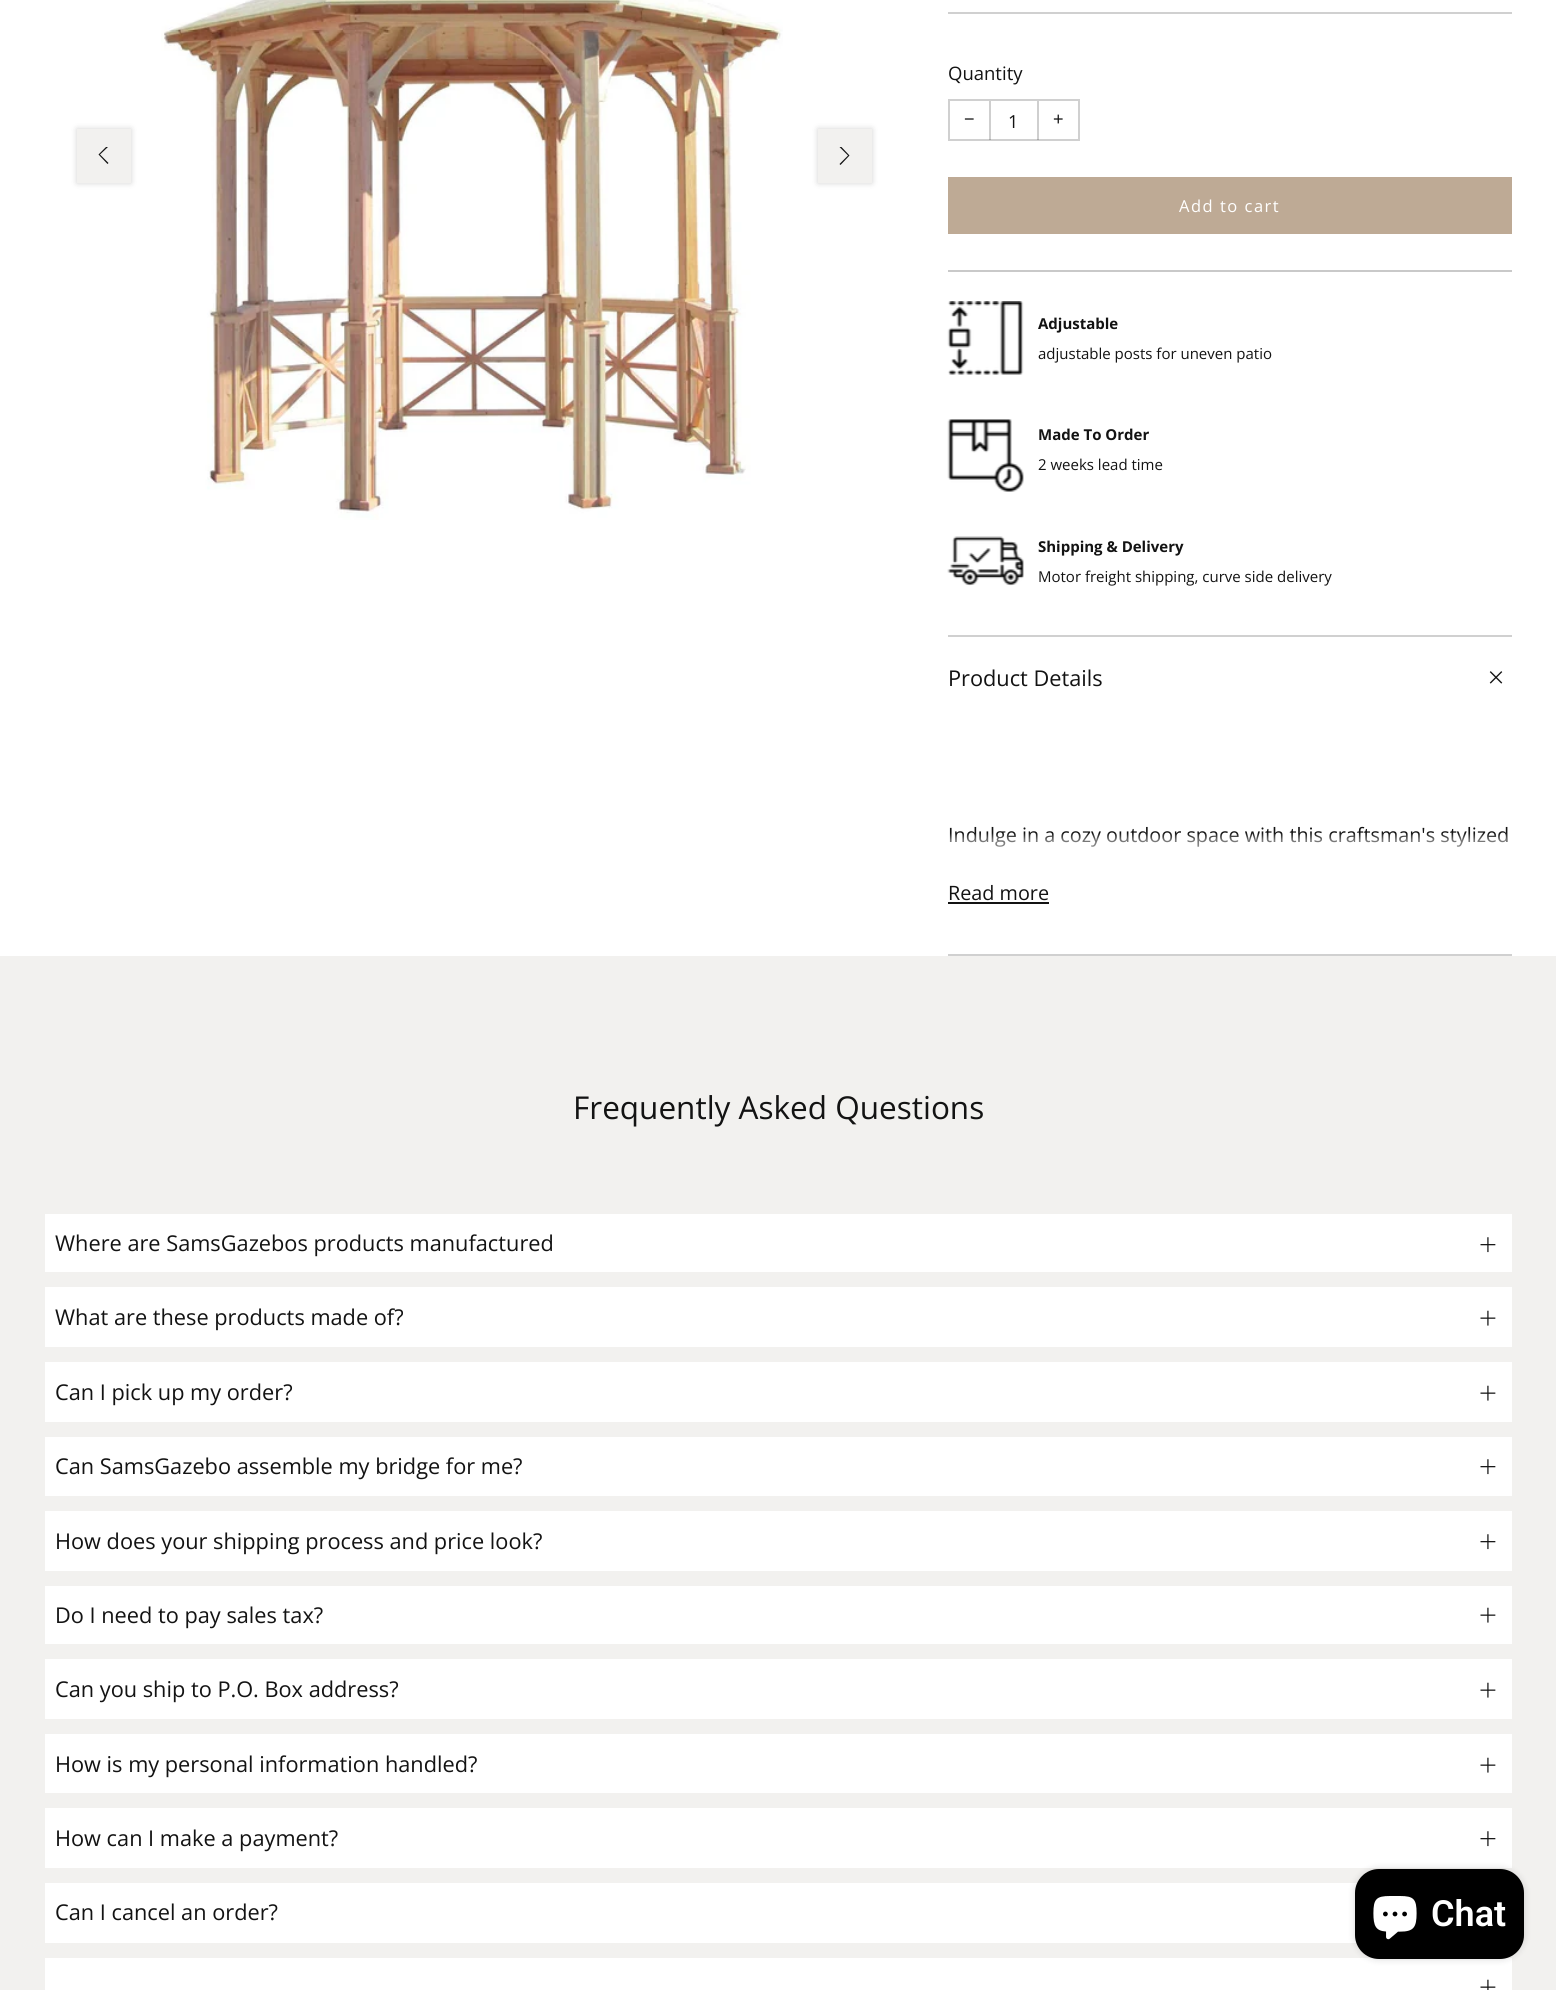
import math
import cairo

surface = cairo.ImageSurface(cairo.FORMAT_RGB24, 1556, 1990)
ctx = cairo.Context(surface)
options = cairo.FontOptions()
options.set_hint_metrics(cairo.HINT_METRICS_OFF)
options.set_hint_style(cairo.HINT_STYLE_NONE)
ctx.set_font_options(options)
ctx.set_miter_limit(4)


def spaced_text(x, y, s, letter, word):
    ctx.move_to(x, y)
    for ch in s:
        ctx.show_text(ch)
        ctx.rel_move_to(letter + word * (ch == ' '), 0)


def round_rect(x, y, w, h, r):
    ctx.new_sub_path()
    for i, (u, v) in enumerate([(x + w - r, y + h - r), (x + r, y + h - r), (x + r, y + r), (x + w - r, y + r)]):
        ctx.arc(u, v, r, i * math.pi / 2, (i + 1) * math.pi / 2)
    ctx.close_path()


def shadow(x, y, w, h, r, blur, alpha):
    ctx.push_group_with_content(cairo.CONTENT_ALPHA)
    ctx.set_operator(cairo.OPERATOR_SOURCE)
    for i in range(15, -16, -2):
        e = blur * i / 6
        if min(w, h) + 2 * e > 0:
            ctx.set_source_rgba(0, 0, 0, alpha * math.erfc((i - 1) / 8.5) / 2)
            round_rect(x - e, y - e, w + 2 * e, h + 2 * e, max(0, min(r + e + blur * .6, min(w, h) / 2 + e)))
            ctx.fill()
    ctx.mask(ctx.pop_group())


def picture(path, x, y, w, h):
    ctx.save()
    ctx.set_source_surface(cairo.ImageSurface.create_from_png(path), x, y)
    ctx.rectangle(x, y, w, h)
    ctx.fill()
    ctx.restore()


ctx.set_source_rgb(0.949, 0.945, 0.937)
ctx.paint()
ctx.set_source_rgb(1, 1, 1)
ctx.rectangle(0, 0, 1556, 956)
ctx.fill()
ctx.set_source_rgb(0.075, 0.075, 0.075)
shadow(77, 129, 54, 54, 0, 3, 0.2)
ctx.set_source_rgb(0.949, 0.945, 0.937)
ctx.rectangle(77, 129, 54, 54)
ctx.fill()
ctx.save()
ctx.rectangle(95, 147, 19, 20)
ctx.clip()
ctx.set_source_rgb(0.075, 0.075, 0.075)
ctx.new_path()
ctx.move_to(108.5, 163)
ctx.line_to(107.5, 164)
ctx.line_to(98.5, 154.5)
ctx.line_to(107.5, 145.5)
ctx.line_to(108.5, 146.5)
ctx.line_to(100, 154.5)
ctx.close_path()
ctx.fill()
ctx.restore()
picture("img1.png", 161, 0, 622, 520)
ctx.set_source_rgb(0.075, 0.075, 0.075)
shadow(818, 129, 54, 54, 0, 3, 0.2)
ctx.set_source_rgb(0.949, 0.945, 0.937)
ctx.rectangle(818, 129, 54, 54)
ctx.fill()
ctx.save()
ctx.rectangle(836, 147, 19, 20)
ctx.clip()
ctx.set_source_rgb(0.075, 0.075, 0.075)
ctx.new_path()
ctx.move_to(839.5, 164)
ctx.line_to(840.5, 165)
ctx.line_to(849.5, 155.5)
ctx.line_to(840.5, 146)
ctx.line_to(839.5, 147)
ctx.line_to(848, 155.5)
ctx.close_path()
ctx.fill()
ctx.restore()
ctx.set_source_rgb(0.816, 0.816, 0.816)
ctx.rectangle(948, 12, 564, 2)
ctx.fill()
ctx.select_font_face("Open Sans")
ctx.set_font_size(18.5)
ctx.set_source_rgb(0.075, 0.075, 0.075)
ctx.move_to(948, 80)
ctx.show_text("Quantity")
ctx.rectangle(949, 100, 130, 40)
ctx.set_source_rgb(0.816, 0.816, 0.816)
ctx.stroke()
ctx.select_font_face("Liberation Sans")
ctx.set_font_size(18)
ctx.set_source_rgb(0.075, 0.075, 0.075)
ctx.move_to(964, 125)
ctx.show_text("−")
ctx.set_source_rgba(0.075, 0.075, 0.075, 0.2)
ctx.rectangle(1037, 101, 2, 39)
ctx.fill()
ctx.rectangle(989, 101, 2, 39)
ctx.fill()
ctx.select_font_face("Open Sans")
ctx.set_source_rgb(0.075, 0.075, 0.075)
ctx.move_to(1008, 128)
ctx.show_text("1")
ctx.select_font_face("Liberation Sans")
ctx.move_to(1053, 125)
ctx.show_text("+")
ctx.set_source_rgb(0.745, 0.667, 0.584)
ctx.rectangle(948, 177, 564, 57)
ctx.fill()
ctx.select_font_face("Open Sans")
ctx.set_font_size(16.5)
ctx.set_source_rgb(1, 1, 1)
spaced_text(1179, 212, "Add to cart", 1.5, 0)
ctx.set_source_rgb(0.788, 0.788, 0.788)
ctx.rectangle(948, 270, 564, 2)
ctx.fill()
picture("img2.png", 947, 301, 77, 74)
ctx.select_font_face("Open Sans", cairo.FONT_SLANT_NORMAL, cairo.FONT_WEIGHT_BOLD)
ctx.set_font_size(15)
ctx.set_source_rgb(0.075, 0.075, 0.075)
ctx.move_to(1038, 329)
ctx.show_text("Adjustable")
ctx.select_font_face("Open Sans")
ctx.move_to(1038, 359)
ctx.show_text("adjustable posts for uneven patio")
picture("img3.png", 947, 419, 77, 73)
ctx.select_font_face("Open Sans", cairo.FONT_SLANT_NORMAL, cairo.FONT_WEIGHT_BOLD)
ctx.move_to(1038, 440)
ctx.show_text("Made To Order")
ctx.select_font_face("Open Sans")
ctx.move_to(1038, 470)
ctx.show_text("2 weeks lead time")
picture("img4.png", 947, 536, 77, 50)
ctx.select_font_face("Open Sans", cairo.FONT_SLANT_NORMAL, cairo.FONT_WEIGHT_BOLD)
ctx.move_to(1038, 552)
ctx.show_text("Shipping & Delivery")
ctx.select_font_face("Open Sans")
ctx.move_to(1038, 582)
ctx.show_text("Motor freight shipping, curve side delivery")
ctx.set_source_rgb(0.816, 0.816, 0.816)
ctx.rectangle(948, 635, 564, 2)
ctx.fill()
ctx.rectangle(948, 954, 564, 2)
ctx.fill()
ctx.set_font_size(21.75)
ctx.set_source_rgb(0.075, 0.075, 0.075)
ctx.move_to(948, 686)
ctx.show_text("Product Details")
picture("img5.png", 1489, 671, 14, 13)
ctx.set_font_size(19.8)
ctx.move_to(948, 842)
ctx.show_text("Indulge in a cozy outdoor space with this craftsman's stylized")
gradient = cairo.LinearGradient(1230, 833, 1230, 878)
gradient.add_color_stop_rgba(0, 1, 1, 1, 0)
gradient.add_color_stop_rgba(0.15, 1, 1, 1, 0.4)
gradient.add_color_stop_rgba(1, 1, 1, 1, 1)
ctx.set_source(gradient)
ctx.rectangle(949, 833, 558, 14)
ctx.fill()
ctx.set_source_rgb(0.075, 0.075, 0.075)
ctx.move_to(948, 900)
ctx.show_text("Read more")
ctx.rectangle(948, 902, 101, 2)
ctx.fill()
ctx.set_font_size(31.5)
ctx.move_to(573, 1119)
ctx.show_text("Frequently Asked Questions")
ctx.set_source_rgb(1, 1, 1)
ctx.rectangle(45, 1214, 1467, 58)
ctx.fill()
ctx.set_font_size(21.75)
ctx.set_source_rgb(0.075, 0.075, 0.075)
ctx.move_to(55, 1251)
ctx.show_text("Where are SamsGazebos products manufactured")
picture("img6.png", 1480, 1237, 16, 16)
ctx.set_source_rgb(1, 1, 1)
ctx.rectangle(45, 1287, 1467, 60)
ctx.fill()
ctx.set_source_rgb(0.075, 0.075, 0.075)
ctx.move_to(55, 1325)
ctx.show_text("What are these products made of?")
picture("img7.png", 1480, 1310, 16, 16)
ctx.set_source_rgb(1, 1, 1)
ctx.rectangle(45, 1362, 1467, 60)
ctx.fill()
ctx.set_source_rgb(0.075, 0.075, 0.075)
ctx.move_to(55, 1400)
ctx.show_text("Can I pick up my order?")
picture("img7.png", 1480, 1385, 16, 16)
ctx.set_source_rgb(1, 1, 1)
ctx.rectangle(45, 1437, 1467, 59)
ctx.fill()
ctx.set_source_rgb(0.075, 0.075, 0.075)
ctx.move_to(55, 1474)
ctx.show_text("Can SamsGazebo assemble my bridge for me?")
picture("img6.png", 1480, 1459, 16, 16)
ctx.set_source_rgb(1, 1, 1)
ctx.rectangle(45, 1511, 1467, 60)
ctx.fill()
ctx.set_source_rgb(0.075, 0.075, 0.075)
ctx.move_to(55, 1549)
ctx.show_text("How does your shipping process and price look?")
picture("img6.png", 1480, 1534, 16, 16)
ctx.set_source_rgb(1, 1, 1)
ctx.rectangle(45, 1586, 1467, 58)
ctx.fill()
ctx.set_source_rgb(0.075, 0.075, 0.075)
ctx.move_to(55, 1623)
ctx.show_text("Do I need to pay sales tax?")
picture("img7.png", 1480, 1607, 16, 16)
ctx.set_source_rgb(1, 1, 1)
ctx.rectangle(45, 1659, 1467, 60)
ctx.fill()
ctx.set_source_rgb(0.075, 0.075, 0.075)
ctx.move_to(55, 1697)
ctx.show_text("Can you ship to P.O. Box address?")
picture("img7.png", 1480, 1682, 16, 16)
ctx.set_source_rgb(1, 1, 1)
ctx.rectangle(45, 1734, 1467, 59)
ctx.fill()
ctx.set_source_rgb(0.075, 0.075, 0.075)
ctx.move_to(55, 1772)
ctx.show_text("How is my personal information handled?")
picture("img7.png", 1480, 1757, 16, 16)
ctx.set_source_rgb(1, 1, 1)
ctx.rectangle(45, 1808, 1467, 60)
ctx.fill()
ctx.set_source_rgb(0.075, 0.075, 0.075)
ctx.move_to(55, 1846)
ctx.show_text("How can I make a payment?")
picture("img6.png", 1480, 1831, 16, 16)
ctx.set_source_rgb(1, 1, 1)
ctx.rectangle(45, 1883, 1313, 60)
ctx.fill()
ctx.set_source_rgb(0.075, 0.075, 0.075)
ctx.move_to(55, 1920)
ctx.show_text("Can I cancel an order?")
ctx.set_source_rgb(1, 1, 1)
ctx.rectangle(45, 1958, 1467, 32)
ctx.fill()
picture("img8.png", 1480, 1979, 16, 11)
ctx.set_source_rgb(0, 0, 0)
shadow(1355, 1869, 169, 90, 24, 4, 0.15)
ctx.set_source_rgb(0, 0, 0)
round_rect(1355, 1869, 169, 90, 24)
ctx.fill()
picture("img9.png", 1373, 1896, 44, 44)
ctx.select_font_face("Roboto SemiBold")
ctx.set_font_size(36)
ctx.set_source_rgb(1, 1, 1)
ctx.move_to(1431, 1926)
ctx.show_text("Chat")
surface.write_to_png("page.png")
